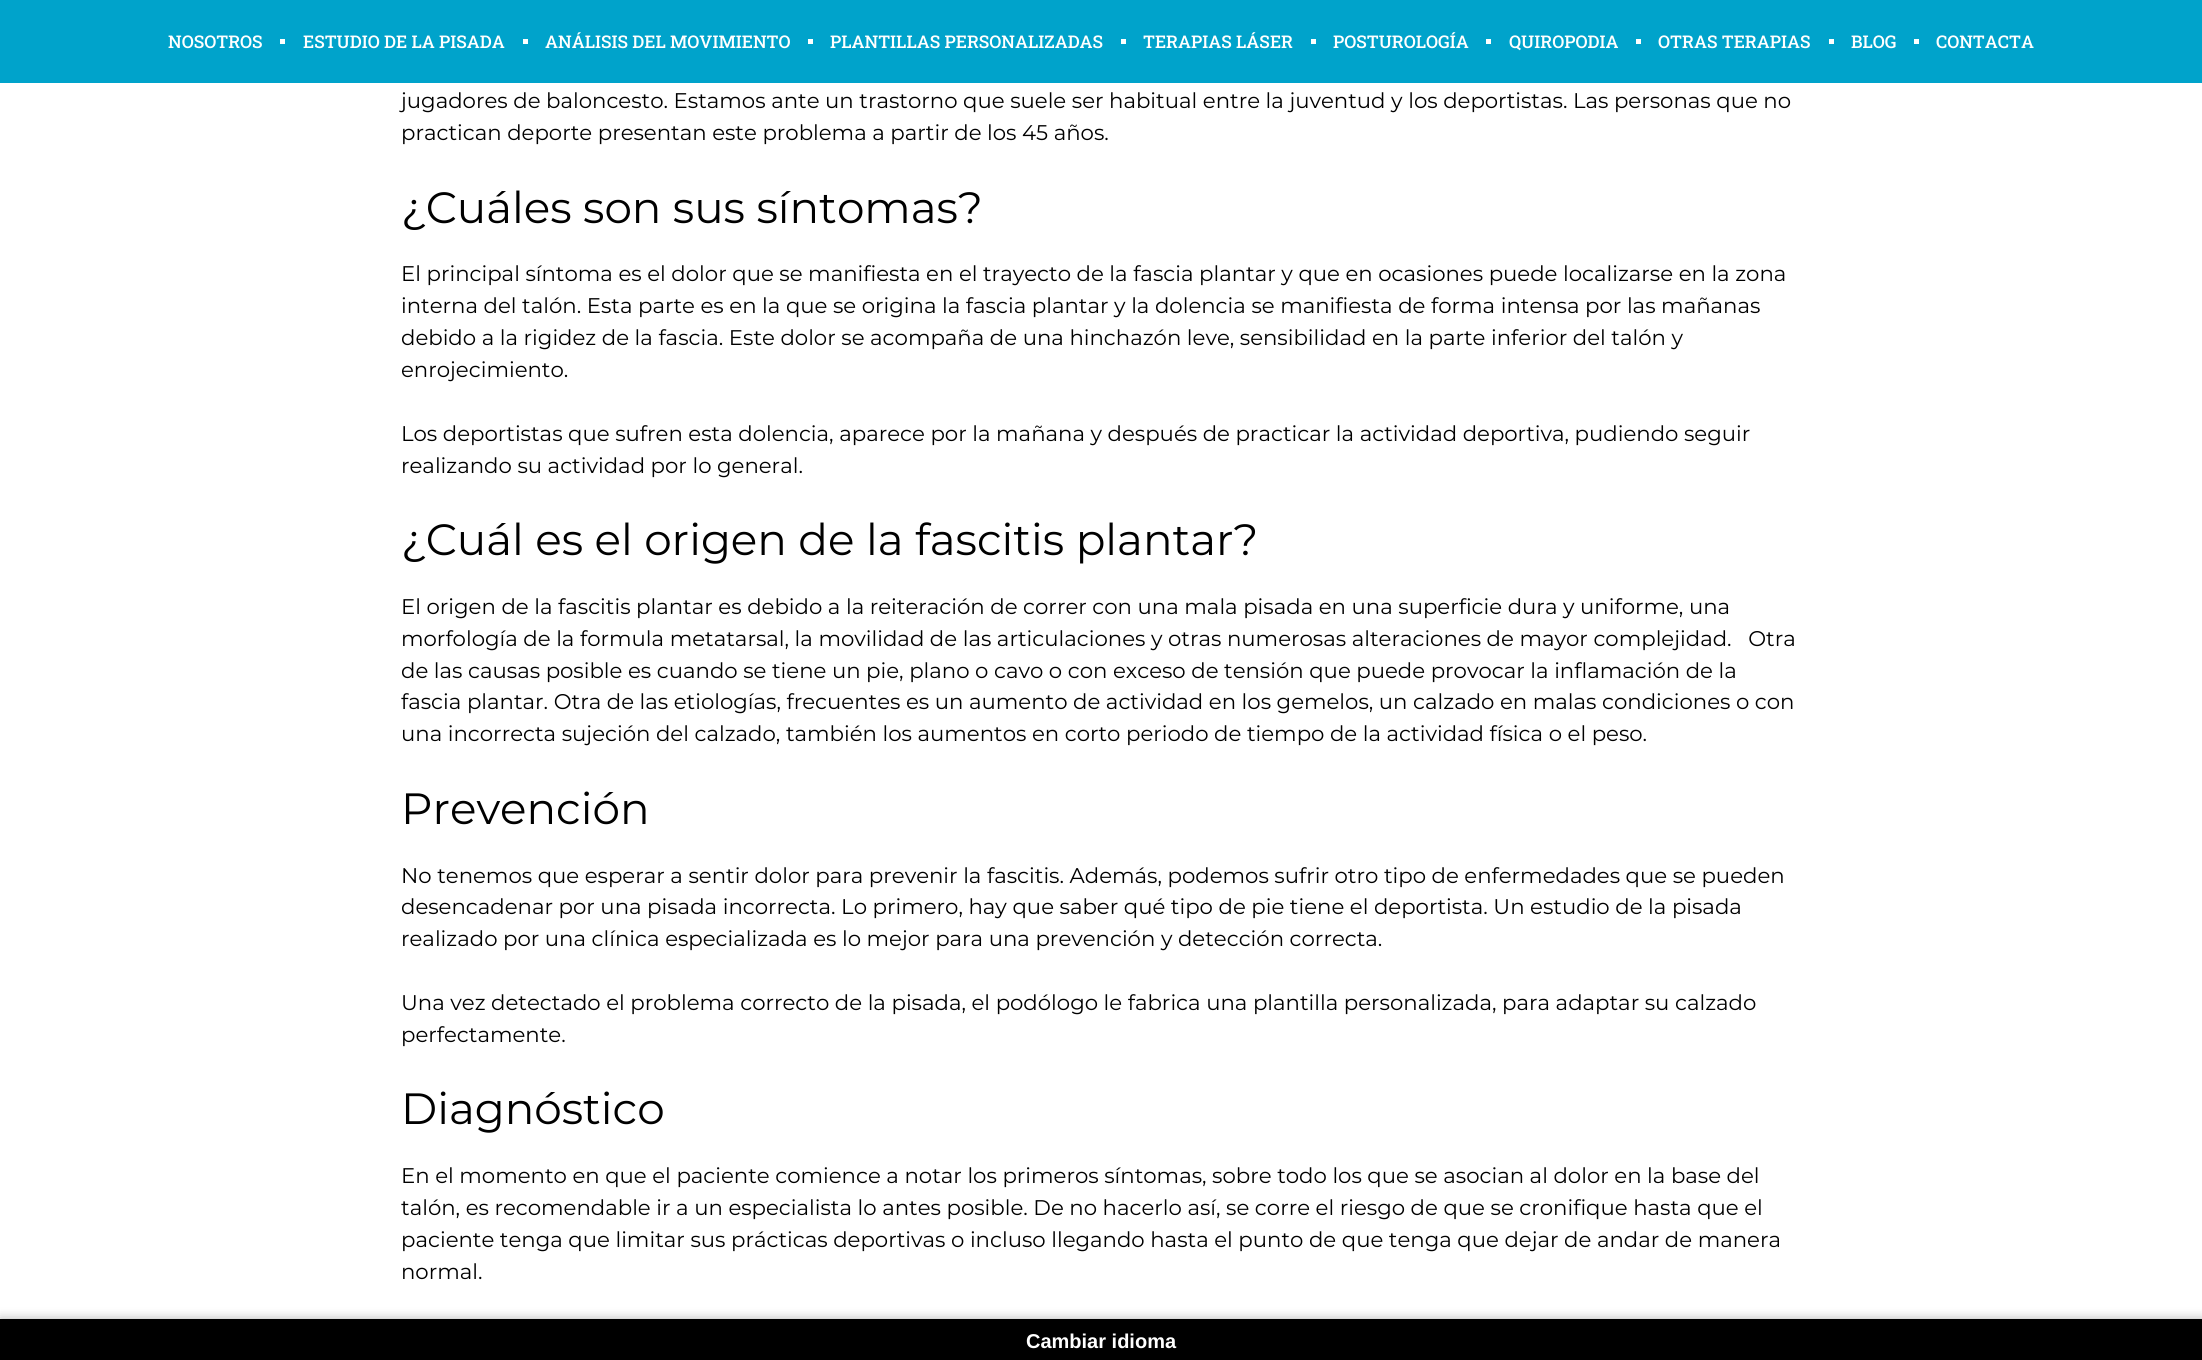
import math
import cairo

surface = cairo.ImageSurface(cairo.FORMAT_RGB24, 2202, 1360)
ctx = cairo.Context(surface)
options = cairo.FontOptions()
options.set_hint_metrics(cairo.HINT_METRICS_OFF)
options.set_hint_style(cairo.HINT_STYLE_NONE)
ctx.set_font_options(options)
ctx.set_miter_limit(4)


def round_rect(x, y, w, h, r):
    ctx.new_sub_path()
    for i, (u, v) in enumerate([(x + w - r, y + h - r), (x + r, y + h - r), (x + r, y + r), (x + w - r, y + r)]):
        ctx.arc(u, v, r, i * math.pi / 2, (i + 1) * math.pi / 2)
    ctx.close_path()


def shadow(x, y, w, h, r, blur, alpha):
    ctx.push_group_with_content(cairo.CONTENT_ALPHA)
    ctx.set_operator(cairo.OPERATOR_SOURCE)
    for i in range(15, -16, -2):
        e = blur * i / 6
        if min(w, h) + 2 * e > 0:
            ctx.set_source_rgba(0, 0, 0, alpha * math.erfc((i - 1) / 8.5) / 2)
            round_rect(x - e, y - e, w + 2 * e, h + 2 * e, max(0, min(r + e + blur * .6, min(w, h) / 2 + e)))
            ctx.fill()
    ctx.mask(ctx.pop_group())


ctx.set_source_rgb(1, 1, 1)
ctx.paint()
ctx.set_source_rgb(0, 0.639, 0.796)
ctx.rectangle(0, 0, 2202, 83)
ctx.fill()
ctx.select_font_face("Roboto Slab Medium")
ctx.set_font_size(17.5)
ctx.set_source_rgb(1, 1, 1)
ctx.move_to(168, 48)
ctx.show_text("NOSOTROS")
ctx.rectangle(280, 39, 5, 5)
ctx.fill()
ctx.move_to(303, 48)
ctx.show_text("ESTUDIO DE LA PISADA")
ctx.rectangle(523, 39, 5, 5)
ctx.fill()
ctx.move_to(545, 48)
ctx.show_text("ANÁLISIS DEL MOVIMIENTO")
ctx.rectangle(808, 39, 5, 5)
ctx.fill()
ctx.move_to(830, 48)
ctx.show_text("PLANTILLAS PERSONALIZADAS")
ctx.rectangle(1121, 39, 5, 5)
ctx.fill()
ctx.move_to(1143, 48)
ctx.show_text("TERAPIAS LÁSER")
ctx.rectangle(1311, 39, 5, 5)
ctx.fill()
ctx.move_to(1333, 48)
ctx.show_text("POSTUROLOGÍA")
ctx.rectangle(1486, 39, 5, 5)
ctx.fill()
ctx.move_to(1509, 48)
ctx.show_text("QUIROPODIA")
ctx.rectangle(1636, 39, 5, 5)
ctx.fill()
ctx.move_to(1658, 48)
ctx.show_text("OTRAS TERAPIAS")
ctx.rectangle(1829, 39, 5, 5)
ctx.fill()
ctx.move_to(1851, 48)
ctx.show_text("BLOG")
ctx.rectangle(1914, 39, 5, 5)
ctx.fill()
ctx.move_to(1936, 48)
ctx.show_text("CONTACTA")
ctx.select_font_face("Montserrat")
ctx.set_font_size(21.25)
ctx.set_source_rgb(0, 0, 0)
ctx.move_to(401, 108)
ctx.show_text("jugadores de baloncesto. Estamos ante un trastorno que suele ser habitual entre la juventud y los deportistas. Las personas que no")
ctx.move_to(401, 140)
ctx.show_text("practican deporte presentan este problema a partir de los 45 años.")
ctx.set_font_size(43.75)
ctx.move_to(401, 223)
ctx.show_text("¿Cuáles son sus síntomas?")
ctx.set_font_size(21.25)
ctx.move_to(401, 281)
ctx.show_text("El principal síntoma es el dolor que se manifiesta en el trayecto de la fascia plantar y que en ocasiones puede localizarse en la zona")
ctx.move_to(401, 313)
ctx.show_text("interna del talón. Esta parte es en la que se origina la fascia plantar y la dolencia se manifiesta de forma intensa por las mañanas")
ctx.move_to(401, 345)
ctx.show_text("debido a la rigidez de la fascia. Este dolor se acompaña de una hinchazón leve, sensibilidad en la parte inferior del talón y")
ctx.move_to(401, 377)
ctx.show_text("enrojecimiento.")
ctx.move_to(401, 441)
ctx.show_text("Los deportistas que sufren esta dolencia, aparece por la mañana y después de practicar la actividad deportiva, pudiendo seguir")
ctx.move_to(401, 473)
ctx.show_text("realizando su actividad por lo general.")
ctx.set_font_size(43.75)
ctx.move_to(401, 555)
ctx.show_text("¿Cuál es el origen de la fascitis plantar?")
ctx.set_font_size(21.25)
ctx.move_to(401, 614)
ctx.show_text("El origen de la fascitis plantar es debido a la reiteración de correr con una mala pisada en una superficie dura y uniforme, una")
ctx.move_to(401, 646)
ctx.show_text("morfología de la formula metatarsal, la movilidad de las articulaciones y otras numerosas alteraciones de mayor complejidad.   Otra")
ctx.move_to(401, 678)
ctx.show_text("de las causas posible es cuando se tiene un pie, plano o cavo o con exceso de tensión que puede provocar la inflamación de la")
ctx.move_to(401, 709)
ctx.show_text("fascia plantar. Otra de las etiologías, frecuentes es un aumento de actividad en los gemelos, un calzado en malas condiciones o con")
ctx.move_to(401, 741)
ctx.show_text("una incorrecta sujeción del calzado, también los aumentos en corto periodo de tiempo de la actividad física o el peso.")
ctx.set_font_size(43.75)
ctx.move_to(401, 824)
ctx.show_text("Prevención")
ctx.set_font_size(21.25)
ctx.move_to(401, 883)
ctx.show_text("No tenemos que esperar a sentir dolor para prevenir la fascitis. Además, podemos sufrir otro tipo de enfermedades que se pueden")
ctx.move_to(401, 914)
ctx.show_text("desencadenar por una pisada incorrecta. Lo primero, hay que saber qué tipo de pie tiene el deportista. Un estudio de la pisada")
ctx.move_to(401, 946)
ctx.show_text("realizado por una clínica especializada es lo mejor para una prevención y detección correcta.")
ctx.move_to(401, 1010)
ctx.show_text("Una vez detectado el problema correcto de la pisada, el podólogo le fabrica una plantilla personalizada, para adaptar su calzado")
ctx.move_to(401, 1042)
ctx.show_text("perfectamente.")
ctx.set_font_size(43.75)
ctx.move_to(401, 1124)
ctx.show_text("Diagnóstico")
ctx.set_font_size(21.25)
ctx.move_to(401, 1183)
ctx.show_text("En el momento en que el paciente comience a notar los primeros síntomas, sobre todo los que se asocian al dolor en la base del")
ctx.move_to(401, 1215)
ctx.show_text("talón, es recomendable ir a un especialista lo antes posible. De no hacerlo así, se corre el riesgo de que se cronifique hasta que el")
ctx.move_to(401, 1247)
ctx.show_text("paciente tenga que limitar sus prácticas deportivas o incluso llegando hasta el punto de que tenga que dejar de andar de manera")
ctx.move_to(401, 1279)
ctx.show_text("normal.")
ctx.set_source_rgb(0, 0, 0)
shadow(0, 1319, 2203, 41, 0, 5.5, 0.3)
ctx.set_source_rgb(0, 0, 0)
ctx.rectangle(0, 1319, 2202, 41)
ctx.fill()
ctx.select_font_face("Liberation Sans", cairo.FONT_SLANT_NORMAL, cairo.FONT_WEIGHT_BOLD)
ctx.set_font_size(20)
ctx.set_source_rgb(1, 1, 1)
ctx.move_to(1026, 1348)
ctx.show_text("Cambiar idioma")
surface.write_to_png("page.png")
